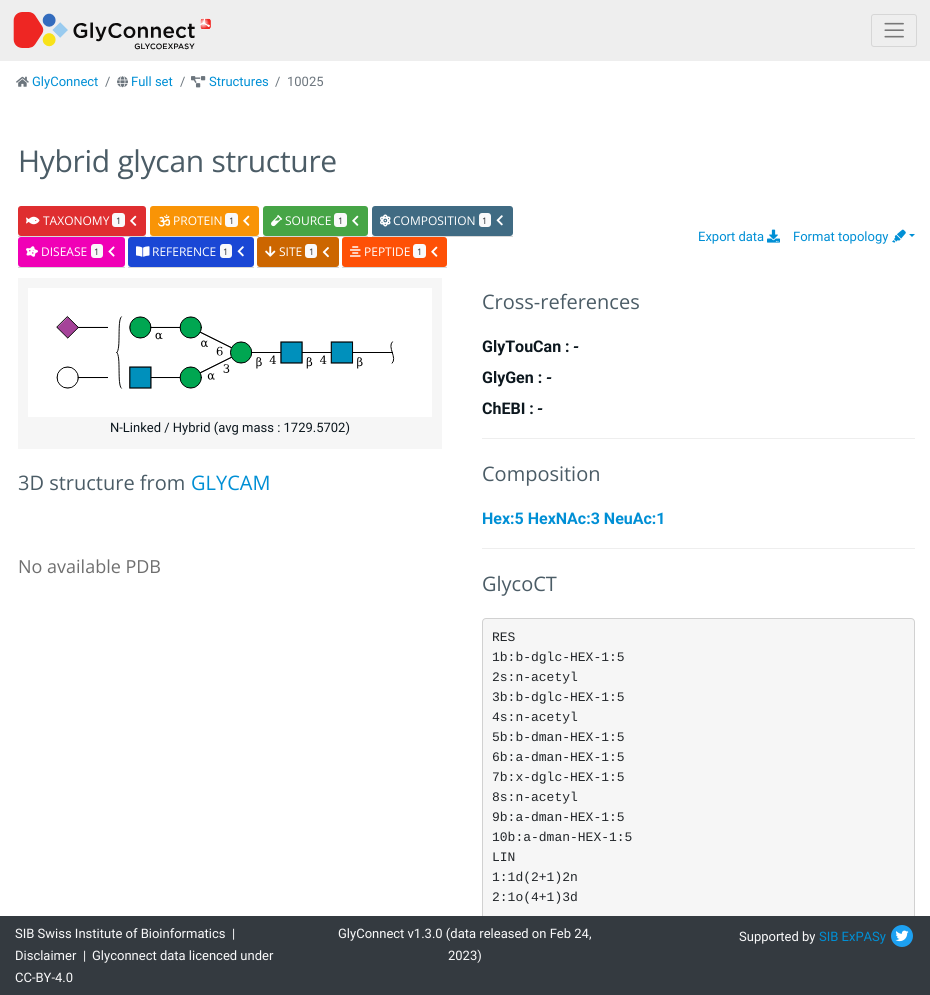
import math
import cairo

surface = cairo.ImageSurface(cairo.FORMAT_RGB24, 930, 995)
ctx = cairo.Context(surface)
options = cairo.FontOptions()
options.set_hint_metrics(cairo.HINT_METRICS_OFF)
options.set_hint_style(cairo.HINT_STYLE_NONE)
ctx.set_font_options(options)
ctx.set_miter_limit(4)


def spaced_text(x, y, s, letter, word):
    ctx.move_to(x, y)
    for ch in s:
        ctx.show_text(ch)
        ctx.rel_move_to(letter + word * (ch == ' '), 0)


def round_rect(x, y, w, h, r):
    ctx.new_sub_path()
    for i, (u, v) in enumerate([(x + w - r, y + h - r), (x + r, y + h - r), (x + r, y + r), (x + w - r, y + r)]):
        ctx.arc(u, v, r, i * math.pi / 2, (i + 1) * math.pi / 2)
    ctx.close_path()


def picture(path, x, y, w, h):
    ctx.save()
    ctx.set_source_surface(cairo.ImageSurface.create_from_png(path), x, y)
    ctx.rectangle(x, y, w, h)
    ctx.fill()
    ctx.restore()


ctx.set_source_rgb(1, 1, 1)
ctx.paint()
ctx.set_source_rgb(0.933, 0.933, 0.933)
ctx.rectangle(0, 0, 930, 61)
ctx.fill()
picture("img1.png", 13, 12, 198, 38)
round_rect(871.5, 14.5, 45, 32, 2.5)
ctx.set_source_rgb(0.839, 0.839, 0.839)
ctx.set_line_width(1)
ctx.stroke()
picture("img2.png", 884, 22, 20, 16)
picture("img3.png", 16, 76, 13, 11)
ctx.select_font_face("Roboto")
ctx.set_font_size(13)
ctx.set_source_rgb(0, 0.561, 0.835)
ctx.move_to(32, 86)
ctx.show_text("GlyConnect")
ctx.set_source_rgb(0.424, 0.459, 0.49)
ctx.move_to(105, 86)
ctx.show_text("/")
picture("img4.png", 117, 76, 11, 12)
ctx.set_source_rgb(0, 0.561, 0.835)
ctx.move_to(131, 86)
ctx.show_text("Full set")
ctx.set_source_rgb(0.424, 0.459, 0.49)
ctx.move_to(180, 86)
ctx.show_text("/")
picture("img5.png", 191, 76, 15, 12)
ctx.set_source_rgb(0, 0.561, 0.835)
ctx.move_to(209, 86)
ctx.show_text("Structures")
ctx.set_source_rgb(0.424, 0.459, 0.49)
ctx.move_to(275, 86)
ctx.show_text("/")
ctx.move_to(287, 86)
ctx.show_text("10025")
ctx.select_font_face("Open Sans")
ctx.set_font_size(30)
ctx.set_source_rgb(0.294, 0.361, 0.4)
spaced_text(18, 172, "Hybrid glycan structure", -0.3, 0)
ctx.set_source_rgb(0.969, 0.969, 0.969)
ctx.new_path()
ctx.move_to(20, 206)
ctx.line_to(144, 206)
ctx.curve_to(145, 206, 146, 207, 146, 208)
ctx.line_to(146, 237)
ctx.line_to(18, 237)
ctx.line_to(18, 208)
ctx.curve_to(18, 207, 19, 206, 20, 206)
ctx.close_path()
ctx.fill()
ctx.set_source_rgb(0.847, 0.847, 0.847)
ctx.rectangle(18, 236, 128, 1)
ctx.fill()
ctx.set_source_rgb(0.875, 0.18, 0.188)
round_rect(18, 206, 128, 30, 3)
ctx.fill()
picture("img6.png", 26, 216, 14, 9)
ctx.set_font_size(12)
ctx.set_source_rgb(1, 1, 1)
ctx.move_to(43, 225)
ctx.show_text("TAXONOMY")
ctx.set_source_rgb(0.973, 0.976, 0.98)
round_rect(112, 213, 13, 14, 3)
ctx.fill()
ctx.set_font_size(9)
ctx.set_source_rgb(0.129, 0.145, 0.161)
ctx.move_to(116, 224)
ctx.show_text("1")
picture("img7.png", 130, 215, 7, 11)
ctx.set_source_rgb(0.969, 0.969, 0.969)
ctx.new_path()
ctx.move_to(152, 206)
ctx.line_to(257, 206)
ctx.curve_to(258, 206, 259, 207, 259, 208)
ctx.line_to(259, 237)
ctx.line_to(150, 237)
ctx.line_to(150, 208)
ctx.curve_to(150, 207, 151, 206, 152, 206)
ctx.close_path()
ctx.fill()
ctx.set_source_rgb(0.847, 0.847, 0.847)
ctx.rectangle(150, 236, 109, 1)
ctx.fill()
ctx.set_source_rgb(0.973, 0.58, 0.024)
round_rect(150, 206, 109, 30, 3)
ctx.fill()
picture("img8.png", 158, 214, 13, 13)
ctx.set_font_size(12)
ctx.set_source_rgb(1, 1, 1)
ctx.move_to(173, 225)
ctx.show_text("PROTEIN")
ctx.set_source_rgb(0.973, 0.976, 0.98)
round_rect(225, 213, 13, 14, 3)
ctx.fill()
ctx.set_font_size(9)
ctx.set_source_rgb(0.129, 0.145, 0.161)
ctx.move_to(229, 224)
ctx.show_text("1")
picture("img9.png", 243, 215, 7, 11)
ctx.set_source_rgb(0.969, 0.969, 0.969)
ctx.new_path()
ctx.move_to(265, 206)
ctx.line_to(366, 206)
ctx.curve_to(367, 206, 368, 207, 368, 208)
ctx.line_to(368, 237)
ctx.line_to(263, 237)
ctx.line_to(263, 208)
ctx.curve_to(263, 207, 264, 206, 265, 206)
ctx.close_path()
ctx.fill()
ctx.set_source_rgb(0.847, 0.847, 0.847)
ctx.rectangle(263, 236, 105, 1)
ctx.fill()
ctx.set_source_rgb(0.275, 0.647, 0.275)
round_rect(263, 206, 105, 30, 3)
ctx.fill()
picture("img10.png", 271, 214, 12, 13)
ctx.set_font_size(12)
ctx.set_source_rgb(1, 1, 1)
ctx.move_to(285, 225)
ctx.show_text("SOURCE")
ctx.set_source_rgb(0.973, 0.976, 0.98)
round_rect(334, 213, 13, 14, 3)
ctx.fill()
ctx.set_font_size(9)
ctx.set_source_rgb(0.129, 0.145, 0.161)
ctx.move_to(338, 224)
ctx.show_text("1")
picture("img11.png", 352, 215, 7, 11)
ctx.set_source_rgb(0.969, 0.969, 0.969)
ctx.new_path()
ctx.move_to(374, 206)
ctx.line_to(511, 206)
ctx.curve_to(512, 206, 513, 207, 513, 208)
ctx.line_to(513, 237)
ctx.line_to(372, 237)
ctx.line_to(372, 208)
ctx.curve_to(372, 207, 373, 206, 374, 206)
ctx.close_path()
ctx.fill()
ctx.set_source_rgb(0.847, 0.847, 0.847)
ctx.rectangle(372, 236, 141, 1)
ctx.fill()
ctx.set_source_rgb(0.251, 0.42, 0.514)
round_rect(372, 206, 141, 30, 3)
ctx.fill()
picture("img12.png", 380, 214, 11, 13)
ctx.set_font_size(12)
ctx.set_source_rgb(1, 1, 1)
ctx.move_to(393, 225)
ctx.show_text("COMPOSITION")
ctx.set_source_rgb(0.973, 0.976, 0.98)
round_rect(479, 213, 12, 14, 3)
ctx.fill()
ctx.set_font_size(9)
ctx.set_source_rgb(0.129, 0.145, 0.161)
ctx.move_to(482, 224)
ctx.show_text("1")
picture("img13.png", 496, 215, 7, 11)
ctx.set_source_rgb(0.969, 0.969, 0.969)
ctx.new_path()
ctx.move_to(20, 237)
ctx.line_to(123, 237)
ctx.curve_to(124, 237, 125, 238, 125, 239)
ctx.line_to(125, 268)
ctx.line_to(18, 268)
ctx.line_to(18, 239)
ctx.curve_to(18, 238, 19, 237, 20, 237)
ctx.close_path()
ctx.fill()
ctx.set_source_rgb(0.847, 0.847, 0.847)
ctx.rectangle(18, 267, 107, 1)
ctx.fill()
ctx.set_source_rgb(0.941, 0, 0.714)
round_rect(18, 237, 107, 30, 3)
ctx.fill()
picture("img14.png", 26, 246, 12, 11)
ctx.set_font_size(12)
ctx.set_source_rgb(1, 1, 1)
ctx.move_to(41, 256)
ctx.show_text("DISEASE")
ctx.set_source_rgb(0.973, 0.976, 0.98)
round_rect(91, 244, 12, 14, 3)
ctx.fill()
ctx.set_font_size(9)
ctx.set_source_rgb(0.129, 0.145, 0.161)
ctx.move_to(94, 255)
ctx.show_text("1")
picture("img15.png", 108, 246, 7, 11)
ctx.set_source_rgb(0.969, 0.969, 0.969)
ctx.new_path()
ctx.move_to(130, 237)
ctx.line_to(252, 237)
ctx.curve_to(253, 237, 254, 238, 254, 239)
ctx.line_to(254, 268)
ctx.line_to(128, 268)
ctx.line_to(128, 239)
ctx.curve_to(128, 238, 129, 237, 130, 237)
ctx.close_path()
ctx.fill()
ctx.set_source_rgb(0.847, 0.847, 0.847)
ctx.rectangle(128, 267, 126, 1)
ctx.fill()
ctx.set_source_rgb(0.102, 0.278, 0.835)
round_rect(128, 237, 126, 30, 3)
ctx.fill()
picture("img16.png", 136, 246, 14, 11)
ctx.set_font_size(12)
ctx.set_source_rgb(1, 1, 1)
ctx.move_to(152, 256)
ctx.show_text("REFERENCE")
ctx.set_source_rgb(0.973, 0.976, 0.98)
round_rect(220, 244, 12, 14, 3)
ctx.fill()
ctx.set_font_size(9)
ctx.set_source_rgb(0.129, 0.145, 0.161)
ctx.move_to(223, 255)
ctx.show_text("1")
picture("img17.png", 237, 246, 7, 11)
ctx.set_source_rgb(0.969, 0.969, 0.969)
ctx.new_path()
ctx.move_to(259, 237)
ctx.line_to(337, 237)
ctx.curve_to(338, 237, 339, 238, 339, 239)
ctx.line_to(339, 268)
ctx.line_to(257, 268)
ctx.line_to(257, 239)
ctx.curve_to(257, 238, 258, 237, 259, 237)
ctx.close_path()
ctx.fill()
ctx.set_source_rgb(0.847, 0.847, 0.847)
ctx.rectangle(257, 267, 82, 1)
ctx.fill()
ctx.set_source_rgb(0.8, 0.4, 0)
round_rect(257, 237, 82, 30, 3)
ctx.fill()
picture("img18.png", 265, 246, 11, 11)
ctx.set_font_size(12)
ctx.set_source_rgb(1, 1, 1)
ctx.move_to(279, 256)
ctx.show_text("SITE")
ctx.set_source_rgb(0.973, 0.976, 0.98)
round_rect(305, 244, 12, 14, 3)
ctx.fill()
ctx.set_font_size(9)
ctx.set_source_rgb(0.129, 0.145, 0.161)
ctx.move_to(309, 255)
ctx.show_text("1")
picture("img19.png", 322, 247, 7, 11)
ctx.set_source_rgb(0.969, 0.969, 0.969)
ctx.new_path()
ctx.move_to(344, 237)
ctx.line_to(445, 237)
ctx.curve_to(446, 237, 447, 238, 447, 239)
ctx.line_to(447, 268)
ctx.line_to(342, 268)
ctx.line_to(342, 239)
ctx.curve_to(342, 238, 343, 237, 344, 237)
ctx.close_path()
ctx.fill()
ctx.set_source_rgb(0.847, 0.847, 0.847)
ctx.rectangle(342, 267, 105, 1)
ctx.fill()
ctx.set_source_rgb(0.996, 0.314, 0.024)
round_rect(342, 237, 105, 30, 3)
ctx.fill()
picture("img20.png", 350, 246, 11, 11)
ctx.set_font_size(12)
ctx.set_source_rgb(1, 1, 1)
ctx.move_to(364, 256)
ctx.show_text("PEPTIDE")
ctx.set_source_rgb(0.973, 0.976, 0.98)
round_rect(413, 244, 13, 14, 3)
ctx.fill()
ctx.set_font_size(9)
ctx.set_source_rgb(0.129, 0.145, 0.161)
ctx.move_to(417, 255)
ctx.show_text("1")
picture("img21.png", 431, 246, 7, 11)
ctx.select_font_face("Roboto")
ctx.set_font_size(13)
ctx.set_source_rgb(0, 0.561, 0.835)
ctx.move_to(698, 241)
ctx.show_text("Export data")
picture("img22.png", 767, 229, 13, 14)
ctx.move_to(793, 241)
ctx.show_text("Format topology")
picture("img23.png", 892, 229, 14, 14)
ctx.new_path()
ctx.move_to(909, 234)
ctx.line_to(915, 234)
ctx.line_to(912, 237)
ctx.close_path()
ctx.fill()
ctx.set_source_rgb(0.961, 0.961, 0.961)
ctx.rectangle(18, 278, 424, 171)
ctx.fill()
picture("img24.png", 28, 288, 404, 129)
ctx.set_source_rgb(0.047, 0.09, 0.118)
ctx.move_to(110, 432)
ctx.show_text("N-Linked / Hybrid (avg mass : 1729.5702)")
ctx.select_font_face("Open Sans")
ctx.set_font_size(20)
ctx.set_source_rgb(0.294, 0.361, 0.4)
ctx.move_to(18, 490)
ctx.show_text("3D structure from")
ctx.set_source_rgb(0, 0.561, 0.835)
ctx.move_to(191, 490)
ctx.show_text("GLYCAM")
ctx.set_font_size(18)
ctx.set_source_rgb(0.435, 0.435, 0.435)
ctx.move_to(18, 573)
ctx.show_text("No available PDB")
ctx.set_font_size(20)
ctx.set_source_rgb(0.294, 0.361, 0.4)
ctx.move_to(482, 309)
ctx.show_text("Cross-references")
ctx.select_font_face("Roboto", cairo.FONT_SLANT_NORMAL, cairo.FONT_WEIGHT_BOLD)
ctx.set_font_size(16)
ctx.set_source_rgb(0.047, 0.09, 0.118)
ctx.move_to(482, 352)
ctx.show_text("GlyTouCan :")
ctx.select_font_face("Roboto", cairo.FONT_SLANT_ITALIC, cairo.FONT_WEIGHT_BOLD)
ctx.move_to(573, 352)
ctx.show_text("-")
ctx.select_font_face("Roboto", cairo.FONT_SLANT_NORMAL, cairo.FONT_WEIGHT_BOLD)
ctx.move_to(482, 383)
ctx.show_text("GlyGen :")
ctx.select_font_face("Roboto", cairo.FONT_SLANT_ITALIC, cairo.FONT_WEIGHT_BOLD)
ctx.move_to(546, 383)
ctx.show_text("-")
ctx.select_font_face("Roboto", cairo.FONT_SLANT_NORMAL, cairo.FONT_WEIGHT_BOLD)
ctx.move_to(482, 414)
ctx.show_text("ChEBI :")
ctx.select_font_face("Roboto", cairo.FONT_SLANT_ITALIC, cairo.FONT_WEIGHT_BOLD)
ctx.move_to(537, 414)
ctx.show_text("-")
ctx.set_source_rgb(0.933, 0.933, 0.933)
ctx.rectangle(482, 438, 433, 1)
ctx.fill()
ctx.select_font_face("Open Sans")
ctx.set_font_size(20)
ctx.set_source_rgb(0.294, 0.361, 0.4)
ctx.move_to(482, 481)
ctx.show_text("Composition")
ctx.select_font_face("Roboto", cairo.FONT_SLANT_NORMAL, cairo.FONT_WEIGHT_BOLD)
ctx.set_font_size(16)
ctx.set_source_rgb(0, 0.561, 0.835)
ctx.move_to(482, 524)
ctx.show_text("Hex:5 HexNAc:3 NeuAc:1")
ctx.set_source_rgb(0.933, 0.933, 0.933)
ctx.rectangle(482, 548, 433, 1)
ctx.fill()
ctx.select_font_face("Open Sans")
ctx.set_font_size(20)
ctx.set_source_rgb(0.294, 0.361, 0.4)
ctx.move_to(482, 591)
ctx.show_text("GlycoCT")
ctx.set_source_rgb(0.961, 0.961, 0.961)
round_rect(482, 618, 433, 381, 4)
ctx.fill()
round_rect(482.5, 618.5, 432, 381, 3.5)
ctx.set_source_rgba(0, 0, 0, 0.15)
ctx.stroke()
ctx.select_font_face("Liberation Mono")
ctx.set_font_size(13)
ctx.set_source_rgb(0.129, 0.145, 0.161)
ctx.move_to(492, 641)
ctx.show_text("RES")
ctx.move_to(492, 661)
ctx.show_text("1b:b-dglc-HEX-1:5")
ctx.move_to(492, 681)
ctx.show_text("2s:n-acetyl")
ctx.move_to(492, 701)
ctx.show_text("3b:b-dglc-HEX-1:5")
ctx.move_to(492, 721)
ctx.show_text("4s:n-acetyl")
ctx.move_to(492, 741)
ctx.show_text("5b:b-dman-HEX-1:5")
ctx.move_to(492, 761)
ctx.show_text("6b:a-dman-HEX-1:5")
ctx.move_to(492, 781)
ctx.show_text("7b:x-dglc-HEX-1:5")
ctx.move_to(492, 801)
ctx.show_text("8s:n-acetyl")
ctx.move_to(492, 821)
ctx.show_text("9b:a-dman-HEX-1:5")
ctx.move_to(492, 841)
ctx.show_text("10b:a-dman-HEX-1:5")
ctx.move_to(492, 861)
ctx.show_text("LIN")
ctx.move_to(492, 881)
ctx.show_text("1:1d(2+1)2n")
ctx.move_to(492, 901)
ctx.show_text("2:1o(4+1)3d")
ctx.set_source_rgb(0.204, 0.227, 0.251)
ctx.rectangle(0, 916, 930, 79)
ctx.fill()
ctx.select_font_face("Roboto")
ctx.set_source_rgb(0.973, 0.976, 0.98)
ctx.move_to(15, 938)
ctx.show_text("SIB Swiss Institute of Bioinformatics")
ctx.move_to(232, 938)
ctx.show_text("|")
ctx.move_to(15, 960)
ctx.show_text("Disclaimer")
ctx.move_to(83, 960)
ctx.show_text("|")
ctx.move_to(92, 960)
ctx.show_text("Glyconnect data licenced under")
ctx.move_to(15, 982)
ctx.show_text("CC-BY-4.0")
ctx.move_to(338, 938)
ctx.show_text("GlyConnect v1.3.0 (data released on Feb 24,")
ctx.move_to(448, 960)
ctx.show_text("2023)")
ctx.move_to(739, 941)
ctx.show_text("Supported by")
ctx.set_source_rgb(0, 0.561, 0.835)
ctx.move_to(819, 941)
ctx.show_text("SIB ExPASy")
picture("img25.png", 891, 925, 22, 22)
surface.write_to_png("page.png")
